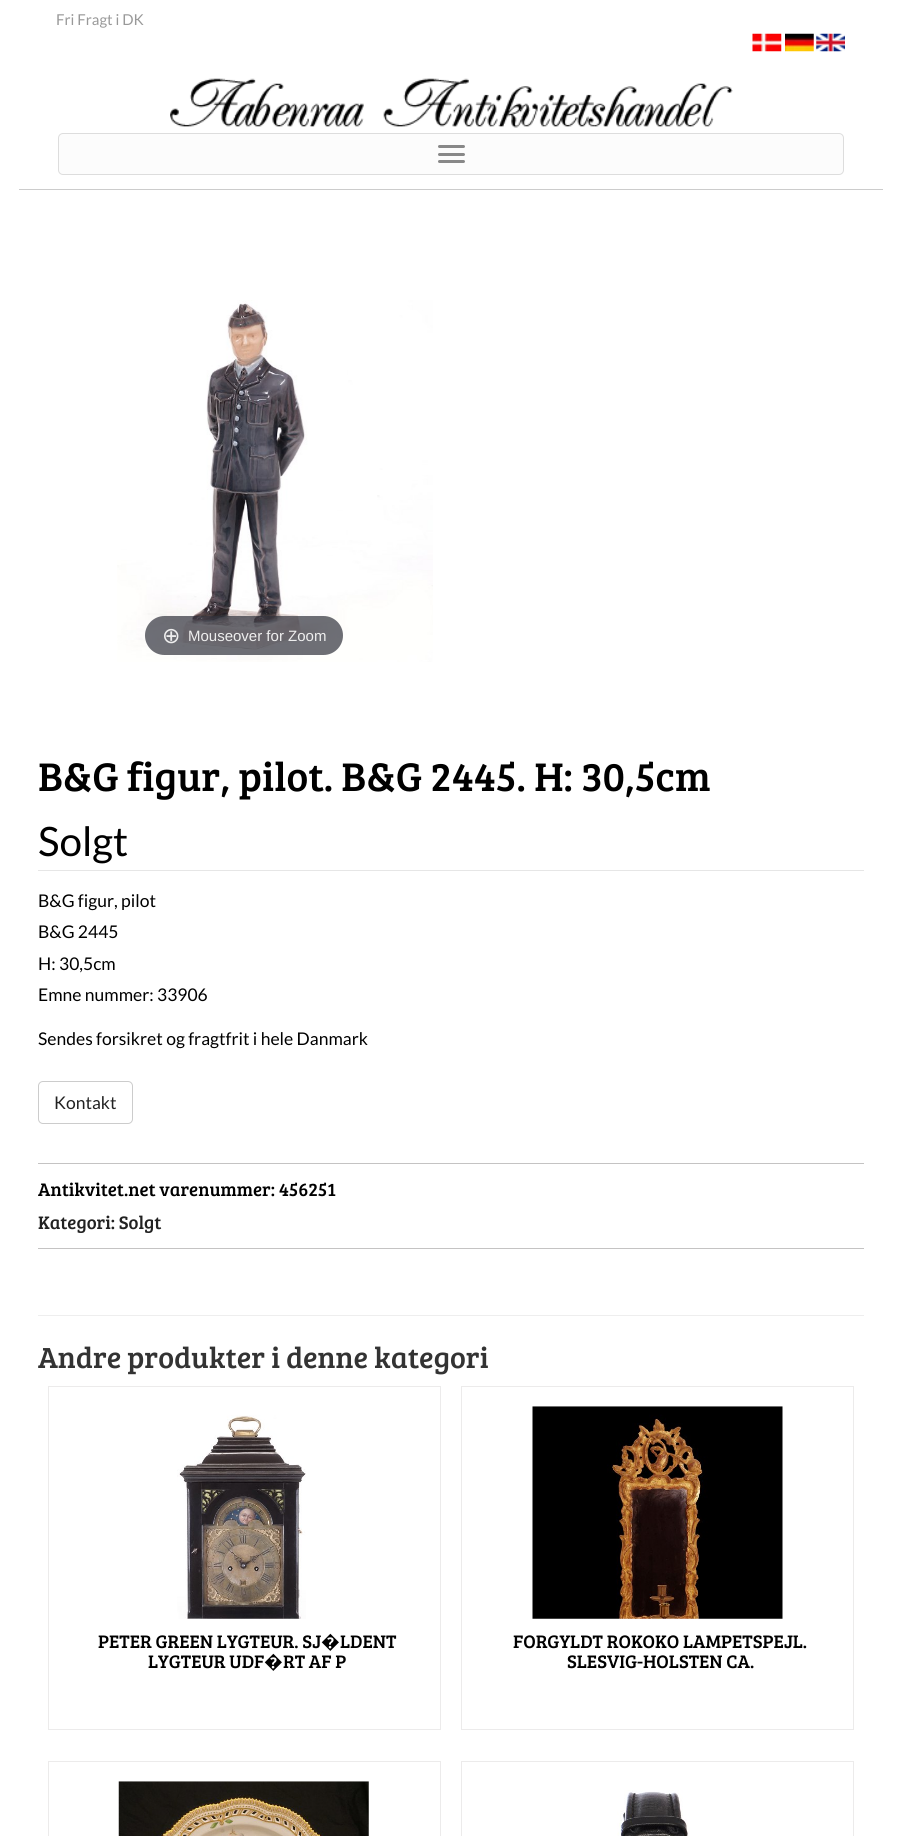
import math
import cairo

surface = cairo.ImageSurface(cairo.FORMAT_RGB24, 901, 1836)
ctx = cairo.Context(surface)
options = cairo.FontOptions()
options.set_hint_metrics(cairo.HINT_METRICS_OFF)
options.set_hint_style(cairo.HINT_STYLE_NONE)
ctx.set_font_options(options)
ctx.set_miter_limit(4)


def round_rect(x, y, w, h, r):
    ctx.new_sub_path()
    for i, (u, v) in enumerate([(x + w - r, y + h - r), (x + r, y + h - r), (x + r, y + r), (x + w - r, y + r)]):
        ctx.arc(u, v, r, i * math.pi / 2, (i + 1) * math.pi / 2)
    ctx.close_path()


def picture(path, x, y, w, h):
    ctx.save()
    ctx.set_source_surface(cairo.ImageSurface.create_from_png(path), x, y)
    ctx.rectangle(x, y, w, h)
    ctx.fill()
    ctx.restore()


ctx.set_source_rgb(1, 1, 1)
ctx.paint()
ctx.select_font_face("Lato")
ctx.set_font_size(15)
ctx.set_source_rgb(0.6, 0.6, 0.6)
ctx.move_to(56, 25)
ctx.show_text("Fri Fragt i DK")
picture("img1.png", 752, 33, 30, 19)
picture("img2.png", 785, 33, 29, 19)
picture("img3.png", 816, 33, 29, 19)
ctx.set_source_rgb(0.8, 0.8, 0.8)
ctx.rectangle(19, 189, 864, 1)
ctx.fill()
picture("img4.png", 170, 78, 563, 50)
ctx.set_source_rgb(0.988, 0.988, 0.988)
round_rect(58.5, 133.5, 785, 41, 4.5)
ctx.fill_preserve()
ctx.set_source_rgb(0.867, 0.867, 0.867)
ctx.set_line_width(1)
ctx.stroke()
ctx.set_source_rgb(0.533, 0.533, 0.533)
round_rect(438, 145, 27, 3, 1.5)
ctx.fill()
round_rect(438, 153, 27, 3, 1.5)
ctx.fill()
round_rect(438, 160, 27, 3, 1.5)
ctx.fill()
picture("img5.png", 117, 300, 316, 362)
ctx.set_source_rgba(0.192, 0.2, 0.239, 0.7)
round_rect(145, 616, 198, 39, 19.5)
ctx.fill()
ctx.select_font_face("DejaVu Sans")
ctx.set_font_size(22)
ctx.set_source_rgb(0.933, 0.933, 0.933)
ctx.move_to(162, 643)
ctx.show_text("⊕")
ctx.select_font_face("Liberation Sans")
ctx.set_font_size(15)
ctx.move_to(188, 641)
ctx.show_text("Mouseover for Zoom")
ctx.select_font_face("Bree Serif")
ctx.set_font_size(41.25)
ctx.set_source_rgb(0, 0, 0)
ctx.move_to(38, 791)
ctx.show_text("B&G figur, pilot. B&G 2445. H: 30,5cm")
ctx.set_source_rgb(0.902, 0.902, 0.902)
ctx.rectangle(38, 870, 826, 1)
ctx.fill()
ctx.select_font_face("Lato")
ctx.set_font_size(40.5)
ctx.set_source_rgb(0, 0, 0)
ctx.move_to(38, 856)
ctx.show_text("Solgt")
ctx.set_font_size(17.5)
ctx.move_to(38, 907)
ctx.show_text("B&G figur, pilot")
ctx.move_to(38, 938)
ctx.show_text("B&G 2445")
ctx.move_to(38, 970)
ctx.show_text("H: 30,5cm")
ctx.move_to(38, 1001)
ctx.show_text("Emne nummer: 33906")
ctx.move_to(38, 1045)
ctx.show_text("Sendes forsikret og fragtfrit i hele Danmark")
round_rect(38.5, 1081.5, 94, 42, 4.5)
ctx.set_source_rgb(0.8, 0.8, 0.8)
ctx.stroke()
ctx.set_source_rgb(0.133, 0.133, 0.133)
ctx.move_to(54, 1109)
ctx.show_text("Kontakt")
ctx.set_source_rgb(0.769, 0.765, 0.765)
ctx.rectangle(38, 1163, 826, 1)
ctx.fill()
ctx.rectangle(38, 1248, 826, 1)
ctx.fill()
ctx.select_font_face("Bree Serif")
ctx.set_font_size(18.75)
ctx.set_source_rgb(0, 0, 0)
ctx.move_to(38, 1196)
ctx.show_text("Antikvitet.net varenummer: 456251")
ctx.set_source_rgb(0.133, 0.133, 0.133)
ctx.move_to(38, 1229)
ctx.show_text("Kategori: Solgt")
ctx.set_source_rgb(0.933, 0.933, 0.933)
ctx.rectangle(38, 1315, 826, 1)
ctx.fill()
ctx.set_font_size(30)
ctx.set_source_rgb(0.2, 0.2, 0.2)
ctx.move_to(38, 1368)
ctx.show_text("Andre produkter i denne kategori")
ctx.rectangle(48.5, 1386.5, 392, 343)
ctx.set_source_rgb(0.925, 0.918, 0.918)
ctx.stroke()
picture("img6.png", 177, 1415, 129, 204)
ctx.set_font_size(18.75)
ctx.set_source_rgb(0, 0, 0)
ctx.move_to(98, 1648)
ctx.show_text("PETER GREEN LYGTEUR. SJ")
ctx.select_font_face("Noto Sans Medium")
ctx.move_to(321, 1648)
ctx.show_text("�")
ctx.select_font_face("Bree Serif")
ctx.move_to(340, 1648)
ctx.show_text("LDENT")
ctx.move_to(148, 1668)
ctx.show_text("LYGTEUR UDF")
ctx.select_font_face("Noto Sans Medium")
ctx.move_to(264, 1668)
ctx.show_text("�")
ctx.select_font_face("Bree Serif")
ctx.move_to(283, 1668)
ctx.show_text("RT AF P")
ctx.rectangle(461.5, 1386.5, 392, 343)
ctx.set_source_rgb(0.925, 0.918, 0.918)
ctx.stroke()
picture("img7.png", 532, 1406, 251, 213)
ctx.set_source_rgb(0, 0, 0)
ctx.move_to(513, 1648)
ctx.show_text("FORGYLDT ROKOKO LAMPETSPEJL.")
ctx.move_to(567, 1668)
ctx.show_text("SLESVIG-HOLSTEN CA.")
ctx.rectangle(48.5, 1761.5, 392, 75)
ctx.set_source_rgb(0.925, 0.918, 0.918)
ctx.stroke()
picture("img8.png", 118, 1781, 251, 55)
ctx.rectangle(461.5, 1761.5, 392, 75)
ctx.stroke()
picture("img9.png", 617, 1790, 72, 46)
surface.write_to_png("page.png")
